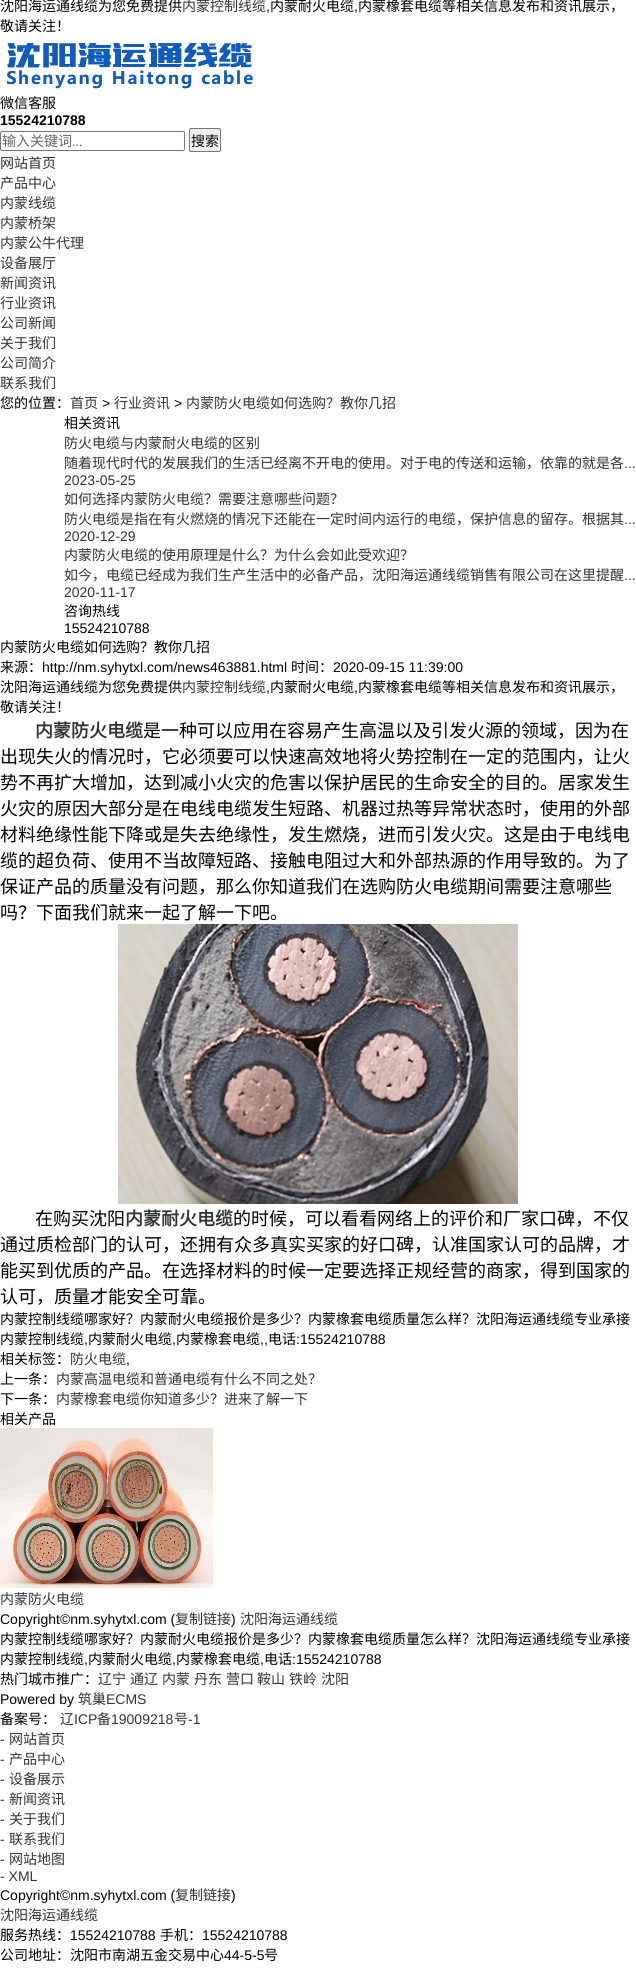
import math
import cairo

surface = cairo.ImageSurface(cairo.FORMAT_RGB24, 636, 1972)
ctx = cairo.Context(surface)
options = cairo.FontOptions()
options.set_hint_metrics(cairo.HINT_METRICS_OFF)
options.set_hint_style(cairo.HINT_STYLE_NONE)
ctx.set_font_options(options)
ctx.set_miter_limit(4)


def round_rect(x, y, w, h, r):
    ctx.new_sub_path()
    for i, (u, v) in enumerate([(x + w - r, y + h - r), (x + r, y + h - r), (x + r, y + r), (x + w - r, y + r)]):
        ctx.arc(u, v, r, i * math.pi / 2, (i + 1) * math.pi / 2)
    ctx.close_path()


def picture(path, x, y, w, h):
    ctx.save()
    ctx.set_source_surface(cairo.ImageSurface.create_from_png(path), x, y)
    ctx.rectangle(x, y, w, h)
    ctx.fill()
    ctx.restore()


ctx.set_source_rgb(1, 1, 1)
ctx.paint()
ctx.select_font_face("Noto Sans CJK SC")
ctx.set_font_size(14)
ctx.set_source_rgb(0, 0, 0)
ctx.move_to(0, 11)
ctx.show_text("沈阳海运通线缆为您免费提供")
ctx.set_source_rgb(0.2, 0.2, 0.2)
ctx.move_to(182, 11)
ctx.show_text("内蒙控制线缆")
ctx.select_font_face("Liberation Sans")
ctx.set_source_rgb(0, 0, 0)
ctx.move_to(266, 11)
ctx.show_text(",")
ctx.select_font_face("Noto Sans CJK SC")
ctx.move_to(270, 11)
ctx.show_text("内蒙耐火电缆")
ctx.select_font_face("Liberation Sans")
ctx.move_to(354, 11)
ctx.show_text(",")
ctx.select_font_face("Noto Sans CJK SC")
ctx.move_to(358, 11)
ctx.show_text("内蒙橡套电缆等相关信息发布和资讯展示，")
ctx.move_to(0, 31)
ctx.show_text("敬请关注！")
picture("img1.png", 0, 43, 256, 48)
ctx.move_to(0, 108)
ctx.show_text("微信客服")
ctx.select_font_face("Liberation Sans", cairo.FONT_SLANT_NORMAL, cairo.FONT_WEIGHT_BOLD)
ctx.move_to(0, 125)
ctx.show_text("15524210788")
round_rect(0.5, 131.5, 184, 19, 1.5)
ctx.set_source_rgb(0.463, 0.463, 0.463)
ctx.set_line_width(1)
ctx.stroke()
ctx.select_font_face("Noto Sans CJK SC")
ctx.set_source_rgb(0.4, 0.4, 0.4)
ctx.move_to(2, 146)
ctx.show_text("输入关键词")
ctx.select_font_face("Liberation Serif")
ctx.move_to(72, 146)
ctx.show_text("...")
ctx.set_source_rgb(0.937, 0.937, 0.937)
round_rect(189.5, 128.5, 31, 23, 1.5)
ctx.fill_preserve()
ctx.set_source_rgb(0.463, 0.463, 0.463)
ctx.stroke()
ctx.select_font_face("Noto Sans CJK SC")
ctx.set_source_rgb(0, 0, 0)
ctx.move_to(191, 146)
ctx.show_text("搜索")
ctx.set_source_rgb(0.2, 0.2, 0.2)
ctx.move_to(0, 168)
ctx.show_text("网站首页")
ctx.move_to(0, 188)
ctx.show_text("产品中心")
ctx.move_to(0, 208)
ctx.show_text("内蒙线缆")
ctx.move_to(0, 228)
ctx.show_text("内蒙桥架")
ctx.move_to(0, 248)
ctx.show_text("内蒙公牛代理")
ctx.move_to(0, 268)
ctx.show_text("设备展厅")
ctx.move_to(0, 288)
ctx.show_text("新闻资讯")
ctx.move_to(0, 308)
ctx.show_text("行业资讯")
ctx.move_to(0, 328)
ctx.show_text("公司新闻")
ctx.move_to(0, 348)
ctx.show_text("关于我们")
ctx.move_to(0, 368)
ctx.show_text("公司简介")
ctx.move_to(0, 388)
ctx.show_text("联系我们")
ctx.set_source_rgb(0, 0, 0)
ctx.move_to(0, 408)
ctx.show_text("您的位置：")
ctx.set_source_rgb(0.2, 0.2, 0.2)
ctx.move_to(70, 408)
ctx.show_text("首页")
ctx.select_font_face("Liberation Sans")
ctx.set_source_rgb(0, 0, 0)
ctx.move_to(102, 408)
ctx.show_text(">")
ctx.select_font_face("Noto Sans CJK SC")
ctx.set_source_rgb(0.2, 0.2, 0.2)
ctx.move_to(114, 408)
ctx.show_text("行业资讯")
ctx.select_font_face("Liberation Sans")
ctx.set_source_rgb(0, 0, 0)
ctx.move_to(174, 408)
ctx.show_text(">")
ctx.select_font_face("Noto Sans CJK SC")
ctx.set_source_rgb(0.2, 0.2, 0.2)
ctx.move_to(186, 408)
ctx.show_text("内蒙防火电缆如何选购？教你几招")
ctx.set_source_rgb(0, 0, 0)
ctx.move_to(64, 428)
ctx.show_text("相关资讯")
ctx.set_source_rgb(0.2, 0.2, 0.2)
ctx.move_to(64, 448)
ctx.show_text("防火电缆与内蒙耐火电缆的区别")
ctx.move_to(64, 468)
ctx.show_text("随着现代时代的发展我们的生活已经离不开电的使用。对于电的传送和运输，依靠的就是各")
ctx.select_font_face("Liberation Sans")
ctx.move_to(624, 468)
ctx.show_text("...")
ctx.move_to(64, 485)
ctx.show_text("2023-05-25")
ctx.select_font_face("Noto Sans CJK SC")
ctx.move_to(64, 504)
ctx.show_text("如何选择内蒙防火电缆？需要注意哪些问题？")
ctx.move_to(64, 524)
ctx.show_text("防火电缆是指在有火燃烧的情况下还能在一定时间内运行的电缆，保护信息的留存。根据其")
ctx.select_font_face("Liberation Sans")
ctx.move_to(624, 524)
ctx.show_text("...")
ctx.move_to(64, 541)
ctx.show_text("2020-12-29")
ctx.select_font_face("Noto Sans CJK SC")
ctx.move_to(64, 560)
ctx.show_text("内蒙防火电缆的使用原理是什么？为什么会如此受欢迎？")
ctx.move_to(64, 580)
ctx.show_text("如今，电缆已经成为我们生产生活中的必备产品，沈阳海运通线缆销售有限公司在这里提醒")
ctx.select_font_face("Liberation Sans")
ctx.move_to(624, 580)
ctx.show_text("...")
ctx.move_to(64, 597)
ctx.show_text("2020-11-17")
ctx.select_font_face("Noto Sans CJK SC")
ctx.set_source_rgb(0, 0, 0)
ctx.move_to(64, 616)
ctx.show_text("咨询热线")
ctx.select_font_face("Liberation Sans")
ctx.move_to(64, 633)
ctx.show_text("15524210788")
ctx.select_font_face("Noto Sans CJK SC")
ctx.move_to(0, 652)
ctx.show_text("内蒙防火电缆如何选购？教你几招")
ctx.move_to(0, 672)
ctx.show_text("来源：")
ctx.select_font_face("Liberation Sans")
ctx.move_to(42, 672)
ctx.show_text("http://nm.syhytxl.com/news463881.html")
ctx.select_font_face("Noto Sans CJK SC")
ctx.move_to(291, 672)
ctx.show_text("时间：")
ctx.select_font_face("Liberation Sans")
ctx.move_to(333, 672)
ctx.show_text("2020-09-15 11:39:00")
ctx.select_font_face("Noto Sans CJK SC")
ctx.move_to(0, 692)
ctx.show_text("沈阳海运通线缆为您免费提供")
ctx.set_source_rgb(0.2, 0.2, 0.2)
ctx.move_to(182, 692)
ctx.show_text("内蒙控制线缆")
ctx.select_font_face("Liberation Sans")
ctx.set_source_rgb(0, 0, 0)
ctx.move_to(266, 692)
ctx.show_text(",")
ctx.select_font_face("Noto Sans CJK SC")
ctx.move_to(270, 692)
ctx.show_text("内蒙耐火电缆")
ctx.select_font_face("Liberation Sans")
ctx.move_to(354, 692)
ctx.show_text(",")
ctx.select_font_face("Noto Sans CJK SC")
ctx.move_to(358, 692)
ctx.show_text("内蒙橡套电缆等相关信息发布和资讯展示，")
ctx.move_to(0, 712)
ctx.show_text("敬请关注！")
ctx.select_font_face("Noto Sans CJK SC", cairo.FONT_SLANT_NORMAL, cairo.FONT_WEIGHT_BOLD)
ctx.set_font_size(18)
ctx.set_source_rgb(0.2, 0.2, 0.2)
ctx.move_to(35, 737)
ctx.show_text("内蒙防火电缆")
ctx.select_font_face("Noto Sans CJK SC")
ctx.set_source_rgb(0, 0, 0)
ctx.move_to(143, 737)
ctx.show_text("是一种可以应用在容易产生高温以及引发火源的领域，因为在")
ctx.move_to(0, 763)
ctx.show_text("出现失火的情况时，它必须要可以快速高效地将火势控制在一定的范围内，让火")
ctx.move_to(0, 789)
ctx.show_text("势不再扩大增加，达到减小火灾的危害以保护居民的生命安全的目的。居家发生")
ctx.move_to(0, 815)
ctx.show_text("火灾的原因大部分是在电线电缆发生短路、机器过热等异常状态时，使用的外部")
ctx.move_to(0, 841)
ctx.show_text("材料绝缘性能下降或是失去绝缘性，发生燃烧，进而引发火灾。这是由于电线电")
ctx.move_to(0, 867)
ctx.show_text("缆的超负荷、使用不当故障短路、接触电阻过大和外部热源的作用导致的。为了")
ctx.move_to(0, 893)
ctx.show_text("保证产品的质量没有问题，那么你知道我们在选购防火电缆期间需要注意哪些")
ctx.move_to(0, 919)
ctx.show_text("吗？下面我们就来一起了解一下吧。")
picture("img2.png", 118, 924, 400, 280)
ctx.move_to(35, 1225)
ctx.show_text("在购买沈阳")
ctx.select_font_face("Noto Sans CJK SC", cairo.FONT_SLANT_NORMAL, cairo.FONT_WEIGHT_BOLD)
ctx.set_source_rgb(0.2, 0.2, 0.2)
ctx.move_to(125, 1225)
ctx.show_text("内蒙耐火电缆")
ctx.select_font_face("Noto Sans CJK SC")
ctx.set_source_rgb(0, 0, 0)
ctx.move_to(233, 1225)
ctx.show_text("的时候，可以看看网络上的评价和厂家口碑，不仅")
ctx.move_to(0, 1251)
ctx.show_text("通过质检部门的认可，还拥有众多真实买家的好口碑，认准国家认可的品牌，才")
ctx.move_to(0, 1277)
ctx.show_text("能买到优质的产品。在选择材料的时候一定要选择正规经营的商家，得到国家的")
ctx.move_to(0, 1303)
ctx.show_text("认可，质量才能安全可靠。")
ctx.set_font_size(14)
ctx.move_to(0, 1324)
ctx.show_text("内蒙控制线缆哪家好？内蒙耐火电缆报价是多少？内蒙橡套电缆质量怎么样？沈阳海运通线缆专业承接")
ctx.move_to(0, 1344)
ctx.show_text("内蒙控制线缆")
ctx.select_font_face("Liberation Sans")
ctx.move_to(84, 1344)
ctx.show_text(",")
ctx.select_font_face("Noto Sans CJK SC")
ctx.move_to(88, 1344)
ctx.show_text("内蒙耐火电缆")
ctx.select_font_face("Liberation Sans")
ctx.move_to(172, 1344)
ctx.show_text(",")
ctx.select_font_face("Noto Sans CJK SC")
ctx.move_to(176, 1344)
ctx.show_text("内蒙橡套电缆")
ctx.select_font_face("Liberation Sans")
ctx.move_to(260, 1344)
ctx.show_text(",,")
ctx.select_font_face("Noto Sans CJK SC")
ctx.move_to(268, 1344)
ctx.show_text("电话")
ctx.select_font_face("Liberation Sans")
ctx.move_to(296, 1344)
ctx.show_text(":15524210788")
ctx.select_font_face("Noto Sans CJK SC")
ctx.move_to(0, 1364)
ctx.show_text("相关标签：")
ctx.set_source_rgb(0.2, 0.2, 0.2)
ctx.move_to(70, 1364)
ctx.show_text("防火电缆")
ctx.select_font_face("Liberation Sans")
ctx.set_source_rgb(0, 0, 0)
ctx.move_to(126, 1364)
ctx.show_text(",")
ctx.select_font_face("Noto Sans CJK SC")
ctx.move_to(0, 1384)
ctx.show_text("上一条：")
ctx.set_source_rgb(0.2, 0.2, 0.2)
ctx.move_to(56, 1384)
ctx.show_text("内蒙高温电缆和普通电缆有什么不同之处？")
ctx.set_source_rgb(0, 0, 0)
ctx.move_to(0, 1404)
ctx.show_text("下一条：")
ctx.set_source_rgb(0.2, 0.2, 0.2)
ctx.move_to(56, 1404)
ctx.show_text("内蒙橡套电缆你知道多少？进来了解一下")
ctx.set_source_rgb(0, 0, 0)
ctx.move_to(0, 1424)
ctx.show_text("相关产品")
picture("img3.png", 0, 1428, 213, 160)
ctx.set_source_rgb(0.2, 0.2, 0.2)
ctx.move_to(0, 1604)
ctx.show_text("内蒙防火电缆")
ctx.select_font_face("Liberation Sans")
ctx.set_source_rgb(0, 0, 0)
ctx.move_to(0, 1624)
ctx.show_text("Copyright©nm.syhytxl.com (")
ctx.select_font_face("Noto Sans CJK SC")
ctx.set_source_rgb(0.2, 0.2, 0.2)
ctx.move_to(175, 1624)
ctx.show_text("复制链接")
ctx.select_font_face("Liberation Sans")
ctx.set_source_rgb(0, 0, 0)
ctx.move_to(231, 1624)
ctx.show_text(")")
ctx.select_font_face("Noto Sans CJK SC")
ctx.set_source_rgb(0.2, 0.2, 0.2)
ctx.move_to(240, 1624)
ctx.show_text("沈阳海运通线缆")
ctx.set_source_rgb(0, 0, 0)
ctx.move_to(0, 1644)
ctx.show_text("内蒙控制线缆哪家好？内蒙耐火电缆报价是多少？内蒙橡套电缆质量怎么样？沈阳海运通线缆专业承接")
ctx.move_to(0, 1664)
ctx.show_text("内蒙控制线缆")
ctx.select_font_face("Liberation Sans")
ctx.move_to(84, 1664)
ctx.show_text(",")
ctx.select_font_face("Noto Sans CJK SC")
ctx.move_to(88, 1664)
ctx.show_text("内蒙耐火电缆")
ctx.select_font_face("Liberation Sans")
ctx.move_to(172, 1664)
ctx.show_text(",")
ctx.select_font_face("Noto Sans CJK SC")
ctx.move_to(176, 1664)
ctx.show_text("内蒙橡套电缆")
ctx.select_font_face("Liberation Sans")
ctx.move_to(260, 1664)
ctx.show_text(",")
ctx.select_font_face("Noto Sans CJK SC")
ctx.move_to(264, 1664)
ctx.show_text("电话")
ctx.select_font_face("Liberation Sans")
ctx.move_to(292, 1664)
ctx.show_text(":15524210788")
ctx.select_font_face("Noto Sans CJK SC")
ctx.move_to(0, 1684)
ctx.show_text("热门城市推广：")
ctx.set_source_rgb(0.2, 0.2, 0.2)
ctx.move_to(98, 1684)
ctx.show_text("辽宁")
ctx.move_to(130, 1684)
ctx.show_text("通辽")
ctx.move_to(162, 1684)
ctx.show_text("内蒙")
ctx.move_to(194, 1684)
ctx.show_text("丹东")
ctx.move_to(226, 1684)
ctx.show_text("营口")
ctx.move_to(257, 1684)
ctx.show_text("鞍山")
ctx.move_to(289, 1684)
ctx.show_text("铁岭")
ctx.move_to(321, 1684)
ctx.show_text("沈阳")
ctx.select_font_face("Liberation Sans")
ctx.set_source_rgb(0, 0, 0)
ctx.move_to(0, 1704)
ctx.show_text("Powered by")
ctx.select_font_face("Noto Sans CJK SC")
ctx.set_source_rgb(0.2, 0.2, 0.2)
ctx.move_to(78, 1704)
ctx.show_text("筑巢")
ctx.select_font_face("Liberation Sans")
ctx.move_to(106, 1704)
ctx.show_text("ECMS")
ctx.select_font_face("Noto Sans CJK SC")
ctx.set_source_rgb(0, 0, 0)
ctx.move_to(0, 1724)
ctx.show_text("备案号：")
ctx.set_source_rgb(0.2, 0.2, 0.2)
ctx.move_to(60, 1724)
ctx.show_text("辽")
ctx.select_font_face("Liberation Sans")
ctx.move_to(74, 1724)
ctx.show_text("ICP")
ctx.select_font_face("Noto Sans CJK SC")
ctx.move_to(97, 1724)
ctx.show_text("备")
ctx.select_font_face("Liberation Sans")
ctx.move_to(111, 1724)
ctx.show_text("19009218")
ctx.select_font_face("Noto Sans CJK SC")
ctx.move_to(174, 1724)
ctx.show_text("号")
ctx.select_font_face("Liberation Sans")
ctx.move_to(188, 1724)
ctx.show_text("-1")
ctx.move_to(0, 1744)
ctx.show_text("-")
ctx.select_font_face("Noto Sans CJK SC")
ctx.move_to(9, 1744)
ctx.show_text("网站首页")
ctx.select_font_face("Liberation Sans")
ctx.move_to(0, 1764)
ctx.show_text("-")
ctx.select_font_face("Noto Sans CJK SC")
ctx.move_to(9, 1764)
ctx.show_text("产品中心")
ctx.select_font_face("Liberation Sans")
ctx.move_to(0, 1784)
ctx.show_text("-")
ctx.select_font_face("Noto Sans CJK SC")
ctx.move_to(9, 1784)
ctx.show_text("设备展示")
ctx.select_font_face("Liberation Sans")
ctx.move_to(0, 1804)
ctx.show_text("-")
ctx.select_font_face("Noto Sans CJK SC")
ctx.move_to(9, 1804)
ctx.show_text("新闻资讯")
ctx.select_font_face("Liberation Sans")
ctx.move_to(0, 1824)
ctx.show_text("-")
ctx.select_font_face("Noto Sans CJK SC")
ctx.move_to(9, 1824)
ctx.show_text("关于我们")
ctx.select_font_face("Liberation Sans")
ctx.move_to(0, 1844)
ctx.show_text("-")
ctx.select_font_face("Noto Sans CJK SC")
ctx.move_to(9, 1844)
ctx.show_text("联系我们")
ctx.select_font_face("Liberation Sans")
ctx.move_to(0, 1864)
ctx.show_text("-")
ctx.select_font_face("Noto Sans CJK SC")
ctx.move_to(9, 1864)
ctx.show_text("网站地图")
ctx.select_font_face("Liberation Sans")
ctx.move_to(0, 1881)
ctx.show_text("- XML")
ctx.set_source_rgb(0, 0, 0)
ctx.move_to(0, 1900)
ctx.show_text("Copyright©nm.syhytxl.com (")
ctx.select_font_face("Noto Sans CJK SC")
ctx.set_source_rgb(0.2, 0.2, 0.2)
ctx.move_to(175, 1900)
ctx.show_text("复制链接")
ctx.select_font_face("Liberation Sans")
ctx.set_source_rgb(0, 0, 0)
ctx.move_to(231, 1900)
ctx.show_text(")")
ctx.select_font_face("Noto Sans CJK SC")
ctx.set_source_rgb(0.2, 0.2, 0.2)
ctx.move_to(0, 1920)
ctx.show_text("沈阳海运通线缆")
ctx.set_source_rgb(0, 0, 0)
ctx.move_to(0, 1940)
ctx.show_text("服务热线：")
ctx.select_font_face("Liberation Sans")
ctx.move_to(70, 1940)
ctx.show_text("15524210788")
ctx.select_font_face("Noto Sans CJK SC")
ctx.move_to(160, 1940)
ctx.show_text("手机：")
ctx.select_font_face("Liberation Sans")
ctx.move_to(202, 1940)
ctx.show_text("15524210788")
ctx.select_font_face("Noto Sans CJK SC")
ctx.move_to(0, 1960)
ctx.show_text("公司地址：沈阳市南湖五金交易中心")
ctx.select_font_face("Liberation Sans")
ctx.move_to(224, 1960)
ctx.show_text("44-5-5")
ctx.select_font_face("Noto Sans CJK SC")
ctx.move_to(264, 1960)
ctx.show_text("号")
surface.write_to_png("page.png")
